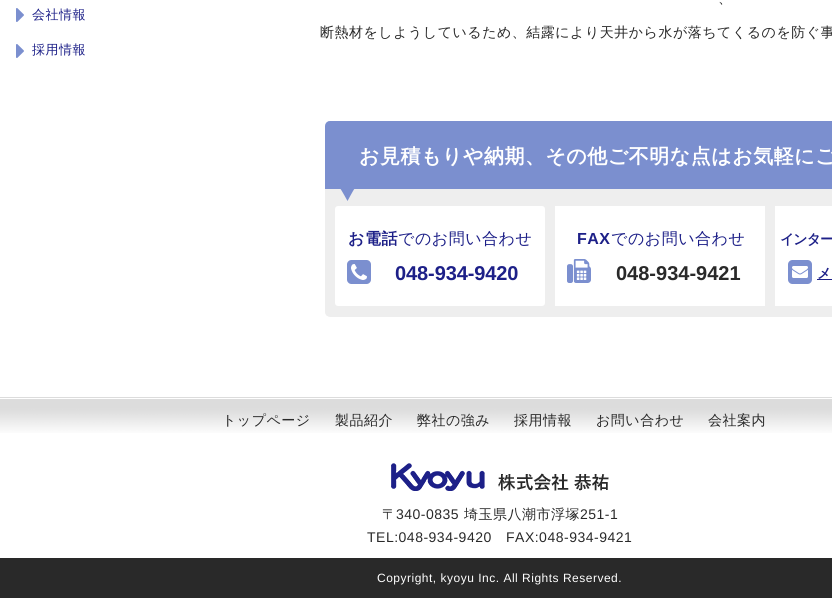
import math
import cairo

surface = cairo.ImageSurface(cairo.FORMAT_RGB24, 832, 598)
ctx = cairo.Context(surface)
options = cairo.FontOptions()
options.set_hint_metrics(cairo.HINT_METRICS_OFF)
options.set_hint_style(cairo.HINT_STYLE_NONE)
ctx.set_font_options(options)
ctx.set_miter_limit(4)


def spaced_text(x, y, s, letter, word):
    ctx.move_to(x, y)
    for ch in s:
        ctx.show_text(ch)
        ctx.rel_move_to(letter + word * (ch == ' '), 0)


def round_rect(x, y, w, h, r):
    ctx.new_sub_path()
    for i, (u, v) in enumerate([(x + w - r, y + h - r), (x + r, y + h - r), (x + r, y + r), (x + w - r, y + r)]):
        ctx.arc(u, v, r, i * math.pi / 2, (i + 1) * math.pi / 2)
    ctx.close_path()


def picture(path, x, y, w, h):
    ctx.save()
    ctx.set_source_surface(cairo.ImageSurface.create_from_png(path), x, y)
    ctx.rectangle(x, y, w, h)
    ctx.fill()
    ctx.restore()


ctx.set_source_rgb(1, 1, 1)
ctx.paint()
picture("img1.png", 16, 8, 8, 14)
ctx.select_font_face("WenQuanYi Zen Hei Medium")
ctx.set_font_size(13)
ctx.set_source_rgb(0.114, 0.125, 0.533)
spaced_text(32, 19, "会社情報", 0.5, 0)
picture("img1.png", 16, 44, 8, 14)
spaced_text(32, 54, "採用情報", 0.5, 0)
ctx.set_font_size(14)
ctx.set_source_rgb(0.161, 0.161, 0.161)
spaced_text(718, 3, "、", 0.5, 0)
spaced_text(320, 37, "断熱材をしようしているため、結露により天井から水が落ちてくるのを防ぐ事", 0.5, 0)
picture("img2.png", 325, 121, 507, 196)
ctx.select_font_face("WenQuanYi Zen Hei", cairo.FONT_SLANT_NORMAL, cairo.FONT_WEIGHT_BOLD)
ctx.set_font_size(20)
ctx.set_source_rgb(1, 1, 1)
spaced_text(359, 163, "お見積もりや納期、その他ご不明な点はお気軽にご", 0.5, 0)
round_rect(335, 206, 210, 100, 3)
ctx.fill()
ctx.set_font_size(16)
ctx.set_source_rgb(0.114, 0.125, 0.533)
spaced_text(348, 244, "お電話", 0.5, 0)
ctx.select_font_face("WenQuanYi Zen Hei Medium")
spaced_text(398, 244, "でのお問い合わせ", 0.5, 0)
picture("img3.png", 347, 260, 24, 24)
ctx.select_font_face("Liberation Sans", cairo.FONT_SLANT_NORMAL, cairo.FONT_WEIGHT_BOLD)
ctx.set_font_size(20)
spaced_text(395, 280, "048-934-9420", -0.1, 0)
ctx.set_source_rgb(1, 1, 1)
ctx.rectangle(555, 206, 210, 100)
ctx.fill()
ctx.set_font_size(16)
ctx.set_source_rgb(0.114, 0.125, 0.533)
spaced_text(577, 244, "FAX", 0.5, 0)
ctx.select_font_face("WenQuanYi Zen Hei Medium")
spaced_text(611, 244, "でのお問い合わせ", 0.5, 0)
picture("img4.png", 567, 259, 24, 24)
ctx.select_font_face("Liberation Sans", cairo.FONT_SLANT_NORMAL, cairo.FONT_WEIGHT_BOLD)
ctx.set_font_size(20)
ctx.set_source_rgb(0.161, 0.161, 0.161)
ctx.move_to(616, 280)
ctx.show_text("048-934-9421")
ctx.set_source_rgb(1, 1, 1)
ctx.rectangle(775, 206, 57, 100)
ctx.fill()
ctx.select_font_face("WenQuanYi Zen Hei", cairo.FONT_SLANT_NORMAL, cairo.FONT_WEIGHT_BOLD)
ctx.set_font_size(14)
ctx.set_source_rgb(0.114, 0.125, 0.533)
spaced_text(780, 244, "インター", -1, 0)
picture("img5.png", 788, 260, 24, 24)
ctx.move_to(817, 278)
ctx.show_text("メ")
ctx.rectangle(817, 279, 15, 1)
ctx.fill()
picture("img6.png", 0, 397, 832, 36)
ctx.select_font_face("WenQuanYi Zen Hei Medium")
ctx.set_source_rgb(0.161, 0.161, 0.161)
spaced_text(222, 425, "トップページ", 0.5, 0)
spaced_text(335, 425, "製品紹介", 0.5, 0)
spaced_text(417, 425, "弊社の強み", 0.5, 0)
spaced_text(514, 425, "採用情報", 0.5, 0)
spaced_text(596, 425, "お問い合わせ", 0.5, 0)
spaced_text(708, 425, "会社案内", 0.5, 0)
picture("img7.png", 391, 463, 218, 28)
spaced_text(382, 519, "〒", 0.5, 0)
ctx.select_font_face("Liberation Sans")
spaced_text(396, 519, "340-0835", 0.5, 0)
ctx.select_font_face("WenQuanYi Zen Hei Medium")
spaced_text(464, 519, "埼玉県八潮市浮塚", 0.5, 0)
ctx.select_font_face("Liberation Sans")
spaced_text(580, 519, "251-1", 0.5, 0)
spaced_text(367, 542, "TEL:048-934-9420", 0.5, 0)
spaced_text(506, 542, "FAX:048-934-9421", 0.5, 0)
ctx.rectangle(0, 558, 832, 40)
ctx.fill()
ctx.set_font_size(12)
ctx.set_source_rgb(1, 1, 1)
spaced_text(377, 582, "Copyright, kyoyu Inc. All Rights Reserved.", 0.5, 0)
surface.write_to_png("page.png")
